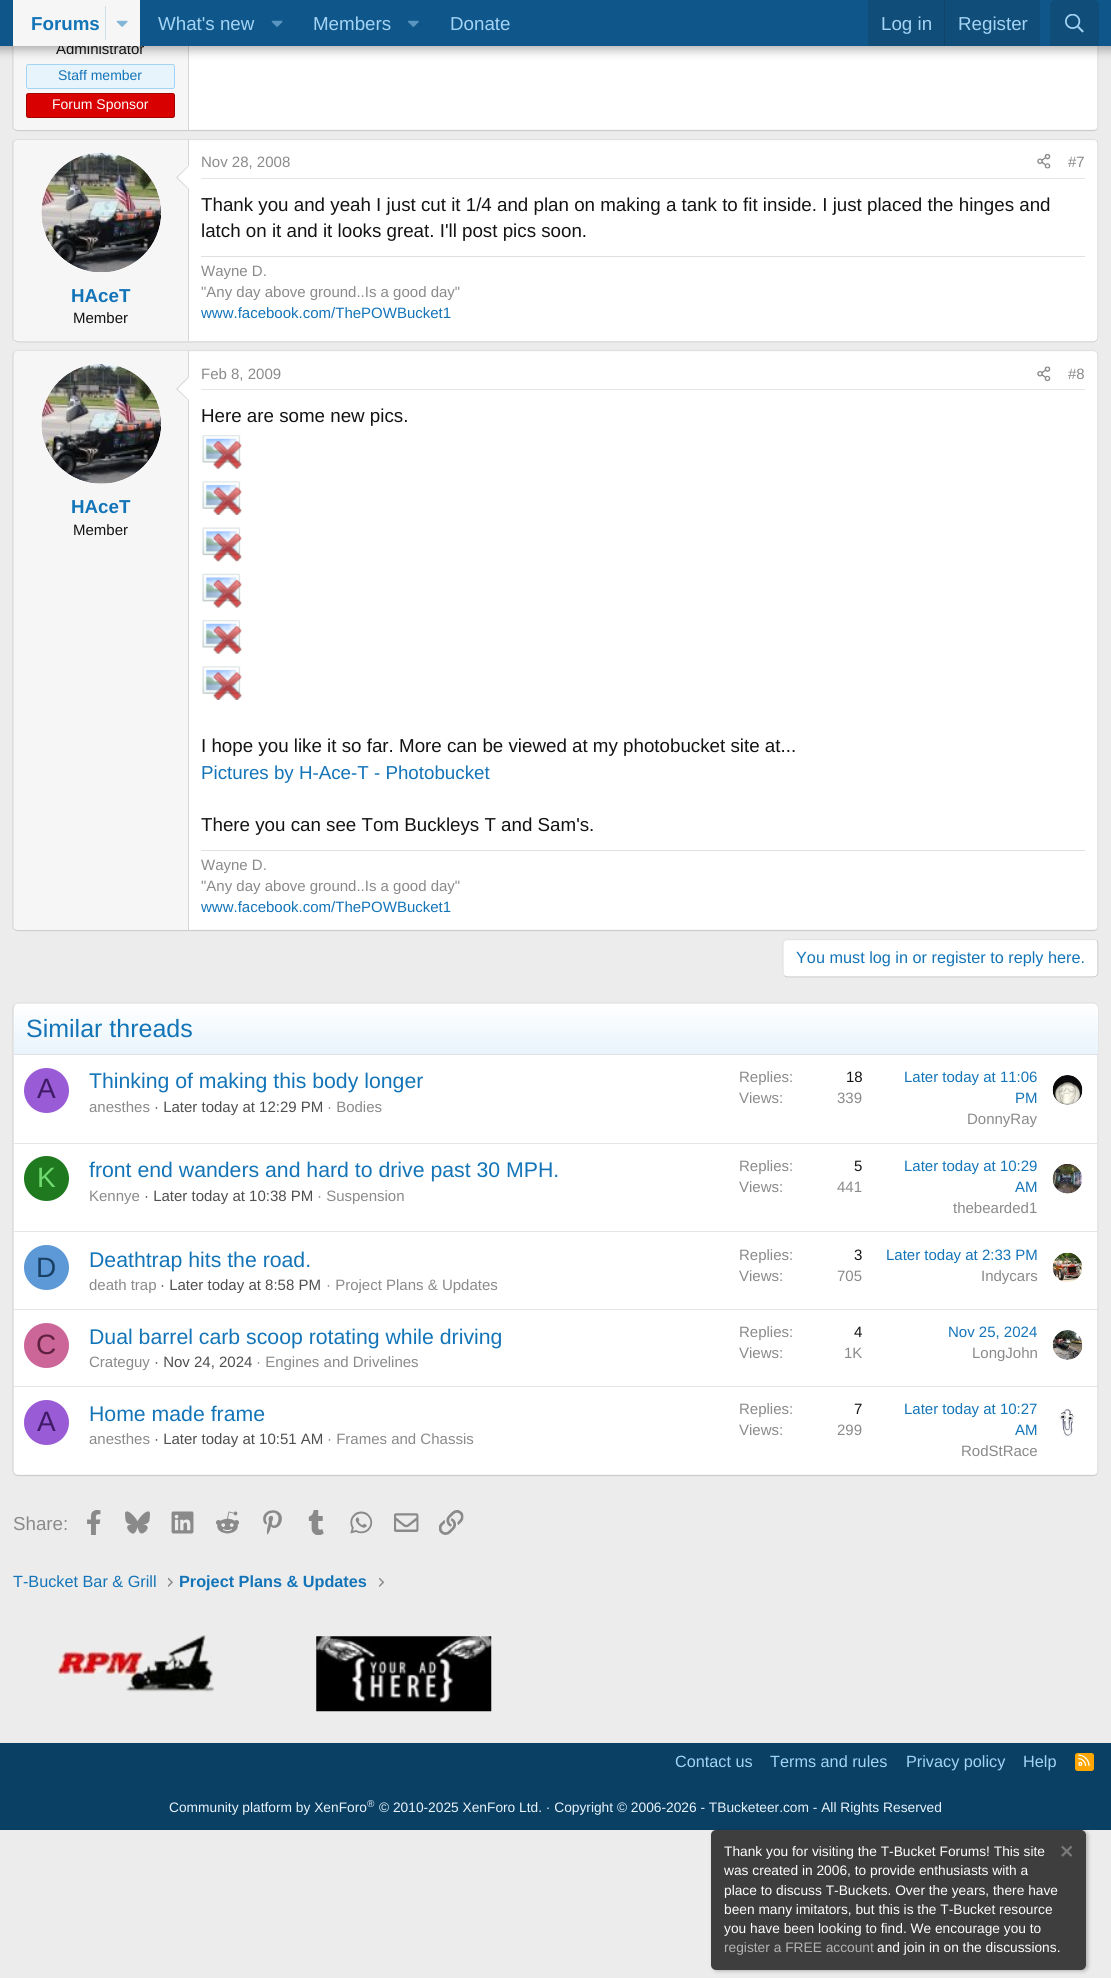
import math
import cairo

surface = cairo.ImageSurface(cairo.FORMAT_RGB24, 1111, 1978)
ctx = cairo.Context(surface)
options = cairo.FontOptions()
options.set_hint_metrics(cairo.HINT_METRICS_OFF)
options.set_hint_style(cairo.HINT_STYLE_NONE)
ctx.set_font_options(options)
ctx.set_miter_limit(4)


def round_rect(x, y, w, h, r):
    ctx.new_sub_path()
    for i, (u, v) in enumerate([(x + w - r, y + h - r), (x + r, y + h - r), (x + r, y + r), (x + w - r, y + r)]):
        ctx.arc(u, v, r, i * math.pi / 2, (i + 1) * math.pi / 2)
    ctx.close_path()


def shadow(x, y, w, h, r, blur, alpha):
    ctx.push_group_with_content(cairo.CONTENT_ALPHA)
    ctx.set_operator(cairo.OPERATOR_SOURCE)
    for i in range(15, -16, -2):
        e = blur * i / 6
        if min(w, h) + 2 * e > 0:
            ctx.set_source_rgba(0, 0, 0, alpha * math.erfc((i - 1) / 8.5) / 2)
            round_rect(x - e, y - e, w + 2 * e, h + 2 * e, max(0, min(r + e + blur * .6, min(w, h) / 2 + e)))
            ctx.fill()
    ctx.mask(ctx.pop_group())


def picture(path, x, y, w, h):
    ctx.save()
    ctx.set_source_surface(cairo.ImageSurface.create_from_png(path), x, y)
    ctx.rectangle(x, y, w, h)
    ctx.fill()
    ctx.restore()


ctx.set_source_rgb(0.922, 0.922, 0.922)
ctx.paint()
ctx.set_source_rgb(1, 1, 1)
round_rect(13, -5, 1086, 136, 5)
ctx.fill()
ctx.new_path()
ctx.move_to(1097, -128)
ctx.curve_to(1097.5, -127.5, 1098, -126, 1098, -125)
ctx.line_to(1098, 126)
ctx.curve_to(1098, 127.5, 1097.5, 128.5, 1097, 129.5)
ctx.set_source_rgb(0.839, 0.839, 0.839)
ctx.set_line_width(1.2)
ctx.stroke()
ctx.new_path()
ctx.move_to(1097, 129.5)
ctx.line_to(1094, 130.5)
ctx.line_to(17.5, 130.5)
ctx.line_to(14.5, 129.5)
ctx.set_source_rgb(0.8, 0.8, 0.8)
ctx.stroke()
ctx.new_path()
ctx.move_to(14.5, 129.5)
ctx.curve_to(13.5, 128.5, 13, 127.5, 13, 126)
ctx.line_to(13, -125)
ctx.curve_to(13, -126, 13.5, -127.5, 14.5, -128)
ctx.set_source_rgb(0.839, 0.839, 0.839)
ctx.stroke()
ctx.set_source_rgb(0.961, 0.961, 0.961)
ctx.new_path()
ctx.move_to(18, -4)
ctx.line_to(189, -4)
ctx.line_to(189, 130)
ctx.line_to(18, 130)
ctx.curve_to(16, 130, 14, 128, 14, 126)
ctx.line_to(14, 0)
ctx.curve_to(14, -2, 16, -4, 18, -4)
ctx.close_path()
ctx.fill()
ctx.set_source_rgb(0.839, 0.839, 0.839)
ctx.rectangle(188, 46, 1, 84)
ctx.fill()
ctx.set_source_rgb(0.91, 0.957, 0.988)
round_rect(26.5, 64.5, 148, 24, 2)
ctx.fill_preserve()
ctx.set_source_rgb(0.639, 0.831, 0.961)
ctx.set_line_width(1)
ctx.stroke()
ctx.set_source_rgb(0, 0, 0)
shadow(-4, -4, 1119, 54, 0, 5, 0.3)
ctx.select_font_face("Liberation Sans")
ctx.set_font_size(15)
ctx.set_source_rgb(0.078, 0.078, 0.078)
ctx.move_to(56, 54)
ctx.show_text("Administrator")
ctx.set_source_rgb(0.059, 0.341, 0.541)
ctx.rectangle(0, 0, 1111, 46)
ctx.fill()
ctx.set_source_rgb(0.961, 0.961, 0.961)
ctx.rectangle(13, 0, 127, 46)
ctx.fill()
ctx.select_font_face("Liberation Sans", cairo.FONT_SLANT_NORMAL, cairo.FONT_WEIGHT_BOLD)
ctx.set_font_size(18.75)
ctx.set_source_rgb(0.078, 0.455, 0.722)
ctx.move_to(31, 30)
ctx.show_text("Forums")
ctx.set_source_rgb(0.808, 0.875, 0.922)
ctx.rectangle(105, 6, 1, 34)
ctx.fill()
picture("img1.png", 116, 20, 12, 7)
ctx.select_font_face("Liberation Sans")
ctx.set_source_rgb(0.639, 0.831, 0.961)
ctx.move_to(158, 30)
ctx.show_text("What's new")
picture("img2.png", 271, 20, 12, 7)
ctx.move_to(313, 30)
ctx.show_text("Members")
picture("img3.png", 408, 20, 11, 7)
ctx.move_to(450, 30)
ctx.show_text("Donate")
ctx.set_source_rgb(0.063, 0.302, 0.471)
ctx.rectangle(868, 0, 172, 46)
ctx.fill()
ctx.set_source_rgb(0.639, 0.831, 0.961)
ctx.move_to(881, 30)
ctx.show_text("Log in")
ctx.set_source_rgb(0.067, 0.267, 0.412)
ctx.rectangle(944, 0, 1, 46)
ctx.fill()
ctx.set_source_rgb(0.639, 0.831, 0.961)
ctx.move_to(958, 30)
ctx.show_text("Register")
ctx.set_source_rgb(0.063, 0.302, 0.471)
ctx.new_path()
ctx.move_to(1055, 0)
ctx.line_to(1094, 0)
ctx.curve_to(1097, 0, 1099, 2, 1099, 5)
ctx.line_to(1099, 46)
ctx.line_to(1050, 46)
ctx.line_to(1050, 5)
ctx.curve_to(1050, 2, 1052, 0, 1055, 0)
ctx.close_path()
ctx.fill()
picture("img4.png", 1065, 14, 19, 19)
ctx.set_font_size(14)
ctx.set_source_rgb(0.078, 0.455, 0.722)
ctx.move_to(58, 80)
ctx.show_text("Staff member")
ctx.set_source_rgb(0.847, 0, 0)
round_rect(26.5, 93.5, 148, 24, 2)
ctx.fill_preserve()
ctx.set_source_rgb(0.647, 0, 0)
ctx.stroke()
ctx.set_source_rgb(1, 1, 1)
ctx.move_to(52, 109)
ctx.show_text("Forum Sponsor")
round_rect(13, 139, 1086, 204, 5)
ctx.fill()
ctx.new_path()
ctx.move_to(14.5, 140.5)
ctx.line_to(17.5, 139.5)
ctx.line_to(1094, 139.5)
ctx.line_to(1097, 140.5)
ctx.set_source_rgb(0.878, 0.878, 0.878)
ctx.set_line_width(1.2)
ctx.stroke()
ctx.new_path()
ctx.move_to(1097, 140.5)
ctx.curve_to(1097.5, 141.5, 1098, 142.5, 1098, 144)
ctx.line_to(1098, 337.5)
ctx.curve_to(1098, 338.5, 1097.5, 340, 1097, 340.5)
ctx.set_source_rgb(0.839, 0.839, 0.839)
ctx.stroke()
ctx.new_path()
ctx.move_to(1097, 340.5)
ctx.line_to(1094, 342)
ctx.line_to(17.5, 342)
ctx.line_to(14.5, 340.5)
ctx.set_source_rgb(0.8, 0.8, 0.8)
ctx.stroke()
ctx.new_path()
ctx.move_to(14.5, 340.5)
ctx.curve_to(13.5, 340, 13, 338.5, 13, 337.5)
ctx.line_to(13, 144)
ctx.curve_to(13, 142.5, 13.5, 141.5, 14.5, 140.5)
ctx.set_source_rgb(0.839, 0.839, 0.839)
ctx.stroke()
ctx.set_source_rgb(0.961, 0.961, 0.961)
ctx.new_path()
ctx.move_to(18, 140)
ctx.line_to(189, 140)
ctx.line_to(189, 341)
ctx.line_to(18, 341)
ctx.curve_to(16, 341, 14, 339, 14, 337)
ctx.line_to(14, 144)
ctx.curve_to(14, 142, 16, 140, 18, 140)
ctx.close_path()
ctx.fill()
ctx.set_source_rgb(0.839, 0.839, 0.839)
ctx.rectangle(188, 140, 1, 201)
ctx.fill()
ctx.set_source_rgb(1, 1, 1)
ctx.arc(101, 213, 60, 0, 2 * math.pi)
ctx.fill()
picture("img5.png", 41, 152, 120, 121)
ctx.set_source_rgb(0.839, 0.839, 0.839)
ctx.new_path()
ctx.move_to(189, 165)
ctx.line_to(189, 190)
ctx.line_to(176, 177.5)
ctx.close_path()
ctx.fill()
ctx.set_source_rgb(1, 1, 1)
ctx.new_path()
ctx.move_to(189, 166)
ctx.line_to(189, 189)
ctx.line_to(177.5, 177.5)
ctx.close_path()
ctx.fill()
ctx.select_font_face("Liberation Sans", cairo.FONT_SLANT_NORMAL, cairo.FONT_WEIGHT_BOLD)
ctx.set_font_size(18.75)
ctx.set_source_rgb(0.078, 0.455, 0.722)
ctx.move_to(71, 302)
ctx.show_text("HAceT")
ctx.select_font_face("Liberation Sans")
ctx.set_font_size(15)
ctx.set_source_rgb(0.078, 0.078, 0.078)
ctx.move_to(73, 323)
ctx.show_text("Member")
ctx.set_source_rgb(0.898, 0.898, 0.898)
ctx.rectangle(201, 178, 884, 1)
ctx.fill()
ctx.set_source_rgb(0.541, 0.541, 0.541)
ctx.move_to(201, 167)
ctx.show_text("Nov 28, 2008")
picture("img6.png", 1037, 154, 14, 15)
ctx.move_to(1068, 167)
ctx.show_text("#7")
ctx.set_font_size(18.75)
ctx.set_source_rgb(0.078, 0.078, 0.078)
ctx.move_to(201, 211)
ctx.show_text("Thank you and yeah I just cut it 1/4 and plan on making a tank to fit inside. I just placed the hinges and")
ctx.move_to(201, 237)
ctx.show_text("latch on it and it looks great. I'll post pics soon.")
ctx.set_source_rgb(0.878, 0.878, 0.878)
ctx.rectangle(201, 256, 884, 1)
ctx.fill()
ctx.set_font_size(15)
ctx.set_source_rgb(0.541, 0.541, 0.541)
ctx.move_to(201, 276)
ctx.show_text("Wayne D.")
ctx.move_to(201, 297)
ctx.show_text("\"Any day above ground..Is a good day\"")
ctx.set_source_rgb(0.078, 0.455, 0.722)
ctx.move_to(201, 318)
ctx.show_text("www.facebook.com/ThePOWBucket1")
ctx.set_source_rgb(1, 1, 1)
round_rect(13, 350, 1086, 581, 5)
ctx.fill()
ctx.new_path()
ctx.move_to(14.5, 352)
ctx.line_to(17.5, 350.5)
ctx.line_to(1094, 350.5)
ctx.line_to(1097, 352)
ctx.set_source_rgb(0.878, 0.878, 0.878)
ctx.stroke()
ctx.new_path()
ctx.move_to(1097, 352)
ctx.curve_to(1097.5, 352.5, 1098, 354, 1098, 355)
ctx.line_to(1098, 926)
ctx.curve_to(1098, 927.5, 1097.5, 928.5, 1097, 929.5)
ctx.set_source_rgb(0.839, 0.839, 0.839)
ctx.stroke()
ctx.new_path()
ctx.move_to(1097, 929.5)
ctx.line_to(1094, 930.5)
ctx.line_to(17.5, 930.5)
ctx.line_to(14.5, 929.5)
ctx.set_source_rgb(0.8, 0.8, 0.8)
ctx.stroke()
ctx.new_path()
ctx.move_to(14.5, 929.5)
ctx.curve_to(13.5, 928.5, 13, 927.5, 13, 926)
ctx.line_to(13, 355)
ctx.curve_to(13, 354, 13.5, 352.5, 14.5, 352)
ctx.set_source_rgb(0.839, 0.839, 0.839)
ctx.stroke()
ctx.set_source_rgb(0.961, 0.961, 0.961)
ctx.new_path()
ctx.move_to(18, 351)
ctx.line_to(189, 351)
ctx.line_to(189, 930)
ctx.line_to(18, 930)
ctx.curve_to(16, 930, 14, 928, 14, 926)
ctx.line_to(14, 355)
ctx.curve_to(14, 353, 16, 351, 18, 351)
ctx.close_path()
ctx.fill()
ctx.set_source_rgb(0.839, 0.839, 0.839)
ctx.rectangle(188, 351, 1, 579)
ctx.fill()
ctx.set_source_rgb(1, 1, 1)
ctx.arc(101, 424, 60, 0, 2 * math.pi)
ctx.fill()
picture("img7.png", 41, 364, 120, 120)
ctx.set_source_rgb(0.839, 0.839, 0.839)
ctx.new_path()
ctx.move_to(189, 376)
ctx.line_to(189, 401)
ctx.line_to(176, 389)
ctx.close_path()
ctx.fill()
ctx.set_source_rgb(1, 1, 1)
ctx.new_path()
ctx.move_to(189, 377.5)
ctx.line_to(189, 400)
ctx.line_to(177.5, 389)
ctx.close_path()
ctx.fill()
ctx.select_font_face("Liberation Sans", cairo.FONT_SLANT_NORMAL, cairo.FONT_WEIGHT_BOLD)
ctx.set_font_size(18.75)
ctx.set_source_rgb(0.078, 0.455, 0.722)
ctx.move_to(71, 513)
ctx.show_text("HAceT")
ctx.select_font_face("Liberation Sans")
ctx.set_font_size(15)
ctx.set_source_rgb(0.078, 0.078, 0.078)
ctx.move_to(73, 535)
ctx.show_text("Member")
ctx.set_source_rgb(0.898, 0.898, 0.898)
ctx.rectangle(201, 389, 884, 1)
ctx.fill()
ctx.set_source_rgb(0.541, 0.541, 0.541)
ctx.move_to(201, 379)
ctx.show_text("Feb 8, 2009")
picture("img8.png", 1037, 366, 14, 15)
ctx.move_to(1068, 379)
ctx.show_text("#8")
ctx.set_font_size(18.75)
ctx.set_source_rgb(0.078, 0.078, 0.078)
ctx.move_to(201, 422)
ctx.show_text("Here are some new pics.")
picture("img9.png", 202, 435, 40, 34)
picture("img10.png", 202, 481, 40, 34)
picture("img11.png", 202, 527, 40, 35)
picture("img12.png", 202, 573, 40, 35)
picture("img9.png", 202, 620, 40, 34)
picture("img10.png", 202, 666, 40, 34)
ctx.move_to(201, 752)
ctx.show_text("I hope you like it so far. More can be viewed at my photobucket site at...")
ctx.set_source_rgb(0.078, 0.455, 0.722)
ctx.move_to(201, 779)
ctx.show_text("Pictures by H-Ace-T - Photobucket")
ctx.set_source_rgb(0.078, 0.078, 0.078)
ctx.move_to(201, 831)
ctx.show_text("There you can see Tom Buckleys T and Sam's.")
ctx.set_source_rgb(0.878, 0.878, 0.878)
ctx.rectangle(201, 850, 884, 1)
ctx.fill()
ctx.set_font_size(15)
ctx.set_source_rgb(0.541, 0.541, 0.541)
ctx.move_to(201, 870)
ctx.show_text("Wayne D.")
ctx.move_to(201, 891)
ctx.show_text("\"Any day above ground..Is a good day\"")
ctx.set_source_rgb(0.078, 0.455, 0.722)
ctx.move_to(201, 912)
ctx.show_text("www.facebook.com/ThePOWBucket1")
ctx.set_source_rgb(1, 1, 1)
round_rect(783, 939, 316, 39, 5)
ctx.fill()
ctx.new_path()
ctx.move_to(1097, 940.5)
ctx.curve_to(1097.5, 941.5, 1098, 942.5, 1098, 944)
ctx.line_to(1098, 972.5)
ctx.curve_to(1098, 973.5, 1097.5, 975, 1097, 975.5)
ctx.curve_to(1096, 976.5, 1095, 977, 1094, 977)
ctx.line_to(787.5, 977)
ctx.curve_to(786.5, 977, 785, 976.5, 784.5, 975.5)
ctx.set_source_rgb(0.788, 0.788, 0.788)
ctx.stroke()
ctx.new_path()
ctx.move_to(784.5, 975.5)
ctx.curve_to(783.5, 975, 783, 973.5, 783, 972.5)
ctx.line_to(783, 944)
ctx.curve_to(783, 942.5, 783.5, 941.5, 784.5, 940.5)
ctx.curve_to(785, 940, 786.5, 939.5, 787.5, 939.5)
ctx.line_to(1094, 939.5)
ctx.curve_to(1095, 939.5, 1096, 940, 1097, 940.5)
ctx.set_source_rgb(0.89, 0.89, 0.89)
ctx.stroke()
ctx.set_font_size(16.25)
ctx.set_source_rgb(0.078, 0.455, 0.722)
ctx.move_to(796, 963)
ctx.show_text("You must log in or register to reply here.")
ctx.set_source_rgb(1, 1, 1)
round_rect(13, 1003, 1086, 473, 5)
ctx.fill()
ctx.new_path()
ctx.move_to(14.5, 1004.5)
ctx.line_to(17.5, 1003)
ctx.line_to(1094, 1003)
ctx.line_to(1097, 1004.5)
ctx.set_source_rgb(0.878, 0.878, 0.878)
ctx.stroke()
ctx.new_path()
ctx.move_to(1097, 1004.5)
ctx.line_to(1098, 1007.5)
ctx.line_to(1098, 1471)
ctx.line_to(1097, 1474.5)
ctx.set_source_rgb(0.839, 0.839, 0.839)
ctx.stroke()
ctx.new_path()
ctx.move_to(1097, 1474.5)
ctx.line_to(1094, 1475.5)
ctx.line_to(17.5, 1475.5)
ctx.line_to(14.5, 1474.5)
ctx.set_source_rgb(0.8, 0.8, 0.8)
ctx.stroke()
ctx.new_path()
ctx.move_to(14.5, 1474.5)
ctx.line_to(13, 1471)
ctx.line_to(13, 1007.5)
ctx.line_to(14.5, 1004.5)
ctx.set_source_rgb(0.839, 0.839, 0.839)
ctx.stroke()
gradient = cairo.LinearGradient(556, 1054, 556, 1004)
gradient.add_color_stop_rgba(0, 0.91, 0.957, 0.988, 1)
gradient.add_color_stop_rgba(1, 1, 1, 1, 1)
ctx.set_source(gradient)
ctx.new_path()
ctx.move_to(18, 1004)
ctx.line_to(1094, 1004)
ctx.curve_to(1096, 1004, 1098, 1006, 1098, 1008)
ctx.line_to(1098, 1054)
ctx.line_to(14, 1054)
ctx.line_to(14, 1008)
ctx.curve_to(14, 1006, 16, 1004, 18, 1004)
ctx.close_path()
ctx.fill()
ctx.set_source_rgb(0.878, 0.878, 0.878)
ctx.rectangle(14, 1054, 1084, 1)
ctx.fill()
ctx.set_font_size(25)
ctx.set_source_rgb(0.078, 0.455, 0.722)
ctx.move_to(26, 1037)
ctx.show_text("Similar threads")
ctx.set_source_rgb(0.6, 0.361, 0.839)
ctx.new_path()
ctx.arc(46.5, 1090.5, 22.5, 0, 2 * math.pi)
ctx.fill()
ctx.set_font_size(28)
ctx.set_source_rgb(0.251, 0.102, 0.4)
ctx.move_to(37, 1098)
ctx.show_text("A")
ctx.set_font_size(21.25)
ctx.set_source_rgb(0.078, 0.455, 0.722)
ctx.move_to(89, 1088)
ctx.show_text("Thinking of making this body longer")
ctx.set_font_size(15)
ctx.set_source_rgb(0.541, 0.541, 0.541)
ctx.move_to(89, 1112)
ctx.show_text("anesthes")
ctx.set_source_rgb(0.31, 0.31, 0.31)
ctx.move_to(154, 1112)
ctx.show_text("· Later today at 12:29 PM")
ctx.set_source_rgb(0.541, 0.541, 0.541)
ctx.move_to(327, 1112)
ctx.show_text("· Bodies")
ctx.move_to(739, 1082)
ctx.show_text("Replies:")
ctx.set_source_rgb(0.078, 0.078, 0.078)
ctx.move_to(846, 1082)
ctx.show_text("18")
ctx.set_source_rgb(0.541, 0.541, 0.541)
ctx.move_to(739, 1103)
ctx.show_text("Views:")
ctx.move_to(837, 1103)
ctx.show_text("339")
ctx.set_source_rgb(0.078, 0.455, 0.722)
ctx.move_to(904, 1082)
ctx.show_text("Later today at 11:06")
ctx.move_to(1015, 1103)
ctx.show_text("PM")
ctx.set_source_rgb(0.541, 0.541, 0.541)
ctx.move_to(967, 1124)
ctx.show_text("DonnyRay")
picture("img13.png", 1052, 1075, 31, 30)
ctx.set_source_rgb(0.898, 0.898, 0.898)
ctx.rectangle(14, 1143, 1084, 1)
ctx.fill()
ctx.set_source_rgb(0.122, 0.478, 0.122)
ctx.arc(46.5, 1178.5, 22.5, 0, 2 * math.pi)
ctx.fill()
ctx.set_font_size(28)
ctx.set_source_rgb(0.439, 0.859, 0.439)
ctx.move_to(37, 1187)
ctx.show_text("K")
ctx.set_font_size(21.25)
ctx.set_source_rgb(0.078, 0.455, 0.722)
ctx.move_to(89, 1177)
ctx.show_text("front end wanders and hard to drive past 30 MPH.")
ctx.set_font_size(15)
ctx.set_source_rgb(0.541, 0.541, 0.541)
ctx.move_to(89, 1201)
ctx.show_text("Kennye")
ctx.set_source_rgb(0.31, 0.31, 0.31)
ctx.move_to(144, 1201)
ctx.show_text("· Later today at 10:38 PM")
ctx.set_source_rgb(0.541, 0.541, 0.541)
ctx.move_to(317, 1201)
ctx.show_text("· Suspension")
ctx.move_to(739, 1171)
ctx.show_text("Replies:")
ctx.set_source_rgb(0.078, 0.078, 0.078)
ctx.move_to(854, 1171)
ctx.show_text("5")
ctx.set_source_rgb(0.541, 0.541, 0.541)
ctx.move_to(739, 1192)
ctx.show_text("Views:")
ctx.move_to(837, 1192)
ctx.show_text("441")
ctx.set_source_rgb(0.078, 0.455, 0.722)
ctx.move_to(904, 1171)
ctx.show_text("Later today at 10:29")
ctx.move_to(1015, 1192)
ctx.show_text("AM")
ctx.set_source_rgb(0.541, 0.541, 0.541)
ctx.move_to(953, 1213)
ctx.show_text("thebearded1")
picture("img14.png", 1052, 1164, 31, 30)
ctx.set_source_rgb(0.898, 0.898, 0.898)
ctx.rectangle(14, 1231, 1084, 1)
ctx.fill()
ctx.set_source_rgb(0.361, 0.6, 0.839)
ctx.arc(46.5, 1267.5, 22.5, 0, 2 * math.pi)
ctx.fill()
ctx.set_font_size(28)
ctx.set_source_rgb(0.102, 0.251, 0.4)
ctx.move_to(36, 1277)
ctx.show_text("D")
ctx.set_font_size(21.25)
ctx.set_source_rgb(0.078, 0.455, 0.722)
ctx.move_to(89, 1267)
ctx.show_text("Deathtrap hits the road.")
ctx.set_font_size(15)
ctx.set_source_rgb(0.541, 0.541, 0.541)
ctx.move_to(89, 1290)
ctx.show_text("death trap")
ctx.set_source_rgb(0.31, 0.31, 0.31)
ctx.move_to(160, 1290)
ctx.show_text("· Later today at 8:58 PM")
ctx.set_source_rgb(0.541, 0.541, 0.541)
ctx.move_to(326, 1290)
ctx.show_text("· Project Plans & Updates")
ctx.move_to(739, 1260)
ctx.show_text("Replies:")
ctx.set_source_rgb(0.078, 0.078, 0.078)
ctx.move_to(854, 1260)
ctx.show_text("3")
ctx.set_source_rgb(0.541, 0.541, 0.541)
ctx.move_to(739, 1281)
ctx.show_text("Views:")
ctx.move_to(837, 1281)
ctx.show_text("705")
ctx.set_source_rgb(0.078, 0.455, 0.722)
ctx.move_to(886, 1260)
ctx.show_text("Later today at 2:33 PM")
ctx.set_source_rgb(0.541, 0.541, 0.541)
ctx.move_to(981, 1281)
ctx.show_text("Indycars")
picture("img15.png", 1052, 1252, 31, 30)
ctx.set_source_rgb(0.898, 0.898, 0.898)
ctx.rectangle(14, 1309, 1084, 1)
ctx.fill()
ctx.set_source_rgb(0.8, 0.4, 0.6)
ctx.arc(46.5, 1345.5, 22.5, 0, 2 * math.pi)
ctx.fill()
ctx.set_font_size(28)
ctx.set_source_rgb(0.376, 0.125, 0.247)
ctx.move_to(36, 1354)
ctx.show_text("C")
ctx.set_font_size(21.25)
ctx.set_source_rgb(0.078, 0.455, 0.722)
ctx.move_to(89, 1344)
ctx.show_text("Dual barrel carb scoop rotating while driving")
ctx.set_font_size(15)
ctx.set_source_rgb(0.541, 0.541, 0.541)
ctx.move_to(89, 1367)
ctx.show_text("Crateguy")
ctx.set_source_rgb(0.31, 0.31, 0.31)
ctx.move_to(154, 1367)
ctx.show_text("· Nov 24, 2024")
ctx.set_source_rgb(0.541, 0.541, 0.541)
ctx.move_to(256, 1367)
ctx.show_text("· Engines and Drivelines")
ctx.move_to(739, 1337)
ctx.show_text("Replies:")
ctx.set_source_rgb(0.078, 0.078, 0.078)
ctx.move_to(854, 1337)
ctx.show_text("4")
ctx.set_source_rgb(0.541, 0.541, 0.541)
ctx.move_to(739, 1358)
ctx.show_text("Views:")
ctx.move_to(844, 1358)
ctx.show_text("1K")
ctx.set_source_rgb(0.078, 0.455, 0.722)
ctx.move_to(948, 1337)
ctx.show_text("Nov 25, 2024")
ctx.set_source_rgb(0.541, 0.541, 0.541)
ctx.move_to(972, 1358)
ctx.show_text("LongJohn")
picture("img16.png", 1052, 1330, 31, 30)
ctx.set_source_rgb(0.898, 0.898, 0.898)
ctx.rectangle(14, 1386, 1084, 1)
ctx.fill()
ctx.set_source_rgb(0.6, 0.361, 0.839)
ctx.arc(46.5, 1422.5, 22.5, 0, 2 * math.pi)
ctx.fill()
ctx.set_font_size(28)
ctx.set_source_rgb(0.251, 0.102, 0.4)
ctx.move_to(37, 1431)
ctx.show_text("A")
ctx.set_font_size(21.25)
ctx.set_source_rgb(0.078, 0.455, 0.722)
ctx.move_to(89, 1421)
ctx.show_text("Home made frame")
ctx.set_font_size(15)
ctx.set_source_rgb(0.541, 0.541, 0.541)
ctx.move_to(89, 1444)
ctx.show_text("anesthes")
ctx.set_source_rgb(0.31, 0.31, 0.31)
ctx.move_to(154, 1444)
ctx.show_text("· Later today at 10:51 AM")
ctx.set_source_rgb(0.541, 0.541, 0.541)
ctx.move_to(327, 1444)
ctx.show_text("· Frames and Chassis")
ctx.move_to(739, 1414)
ctx.show_text("Replies:")
ctx.set_source_rgb(0.078, 0.078, 0.078)
ctx.move_to(854, 1414)
ctx.show_text("7")
ctx.set_source_rgb(0.541, 0.541, 0.541)
ctx.move_to(739, 1435)
ctx.show_text("Views:")
ctx.move_to(837, 1435)
ctx.show_text("299")
ctx.set_source_rgb(0.078, 0.455, 0.722)
ctx.move_to(904, 1414)
ctx.show_text("Later today at 10:27")
ctx.move_to(1015, 1435)
ctx.show_text("AM")
ctx.set_source_rgb(0.541, 0.541, 0.541)
ctx.move_to(961, 1456)
ctx.show_text("RodStRace")
picture("img17.png", 1057, 1408, 19, 29)
ctx.set_font_size(18.75)
ctx.move_to(13, 1530)
ctx.show_text("Share:")
picture("img18.png", 87, 1510, 14, 25)
picture("img19.png", 125, 1511, 25, 23)
picture("img20.png", 171, 1511, 23, 23)
picture("img21.png", 215, 1511, 24, 23)
picture("img22.png", 263, 1510, 19, 25)
picture("img23.png", 308, 1510, 16, 25)
picture("img24.png", 350, 1511, 23, 23)
picture("img25.png", 394, 1513, 25, 19)
picture("img26.png", 439, 1510, 25, 25)
ctx.set_font_size(16.25)
ctx.set_source_rgb(0.078, 0.455, 0.722)
ctx.move_to(13, 1587)
ctx.show_text("T-Bucket Bar & Grill")
picture("img27.png", 168, 1577, 5, 10)
ctx.select_font_face("Liberation Sans", cairo.FONT_SLANT_NORMAL, cairo.FONT_WEIGHT_BOLD)
ctx.move_to(179, 1587)
ctx.show_text("Project Plans & Updates")
picture("img28.png", 379, 1577, 5, 10)
picture("img29.png", 57, 1635, 157, 57)
picture("img30.png", 316, 1636, 176, 76)
ctx.set_source_rgb(0.043, 0.251, 0.396)
ctx.rectangle(0, 1743, 1111, 87)
ctx.fill()
ctx.select_font_face("Liberation Sans")
ctx.set_source_rgb(0.639, 0.831, 0.961)
ctx.move_to(675, 1767)
ctx.show_text("Contact us")
ctx.move_to(770, 1767)
ctx.show_text("Terms and rules")
ctx.move_to(906, 1767)
ctx.show_text("Privacy policy")
ctx.move_to(1023, 1767)
ctx.show_text("Help")
ctx.set_source_rgb(1, 0.647, 0)
round_rect(1075, 1753, 19, 18, 2.5)
ctx.fill()
picture("img31.png", 1078, 1754, 12, 12)
ctx.set_font_size(13.75)
ctx.set_source_rgb(0.91, 0.957, 0.988)
ctx.move_to(169, 1812)
ctx.show_text("Community platform by XenForo")
ctx.set_font_size(10)
ctx.move_to(367, 1807)
ctx.show_text("®")
ctx.set_font_size(13.75)
ctx.move_to(379, 1812)
ctx.show_text("© 2010-2025 XenForo Ltd. · Copyright © 2006-2026 - TBucketeer.com - All Rights Reserved")
ctx.save()
ctx.set_fill_rule(cairo.FILL_RULE_EVEN_ODD)
ctx.new_path()
ctx.move_to(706, 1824)
ctx.line_to(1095, 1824)
ctx.line_to(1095, 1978)
ctx.line_to(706, 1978)
ctx.close_path()
ctx.move_to(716, 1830)
ctx.line_to(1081, 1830)
ctx.curve_to(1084, 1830, 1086, 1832, 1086, 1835)
ctx.line_to(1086, 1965)
ctx.curve_to(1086, 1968, 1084, 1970, 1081, 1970)
ctx.line_to(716, 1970)
ctx.curve_to(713, 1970, 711, 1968, 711, 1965)
ctx.line_to(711, 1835)
ctx.curve_to(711, 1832, 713, 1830, 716, 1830)
ctx.close_path()
ctx.clip()
ctx.set_source_rgb(0, 0, 0)
shadow(713, 1831, 375, 140, 5, 2, 0.25)
ctx.restore()
ctx.set_source_rgba(0.078, 0.078, 0.078, 0.8)
round_rect(711, 1830, 375, 140, 5)
ctx.fill()
ctx.set_source_rgb(1, 1, 1)
ctx.move_to(724, 1856)
ctx.show_text("Thank you for visiting the T-Bucket Forums! This site")
picture("img32.png", 1061, 1845, 12, 12)
ctx.move_to(724, 1875)
ctx.show_text("was created in 2006, to provide enthusiasts with a")
ctx.move_to(724, 1895)
ctx.show_text("place to discuss T-Buckets. Over the years, there have")
ctx.move_to(724, 1914)
ctx.show_text("been many imitators, but this is the T-Bucket resource")
ctx.move_to(724, 1933)
ctx.show_text("you have been looking to find. We encourage you to")
ctx.set_source_rgb(0.706, 0.706, 0.706)
ctx.move_to(724, 1952)
ctx.show_text("register a FREE account")
ctx.set_source_rgb(1, 1, 1)
ctx.move_to(877, 1952)
ctx.show_text("and join in on the discussions.")
surface.write_to_png("page.png")
